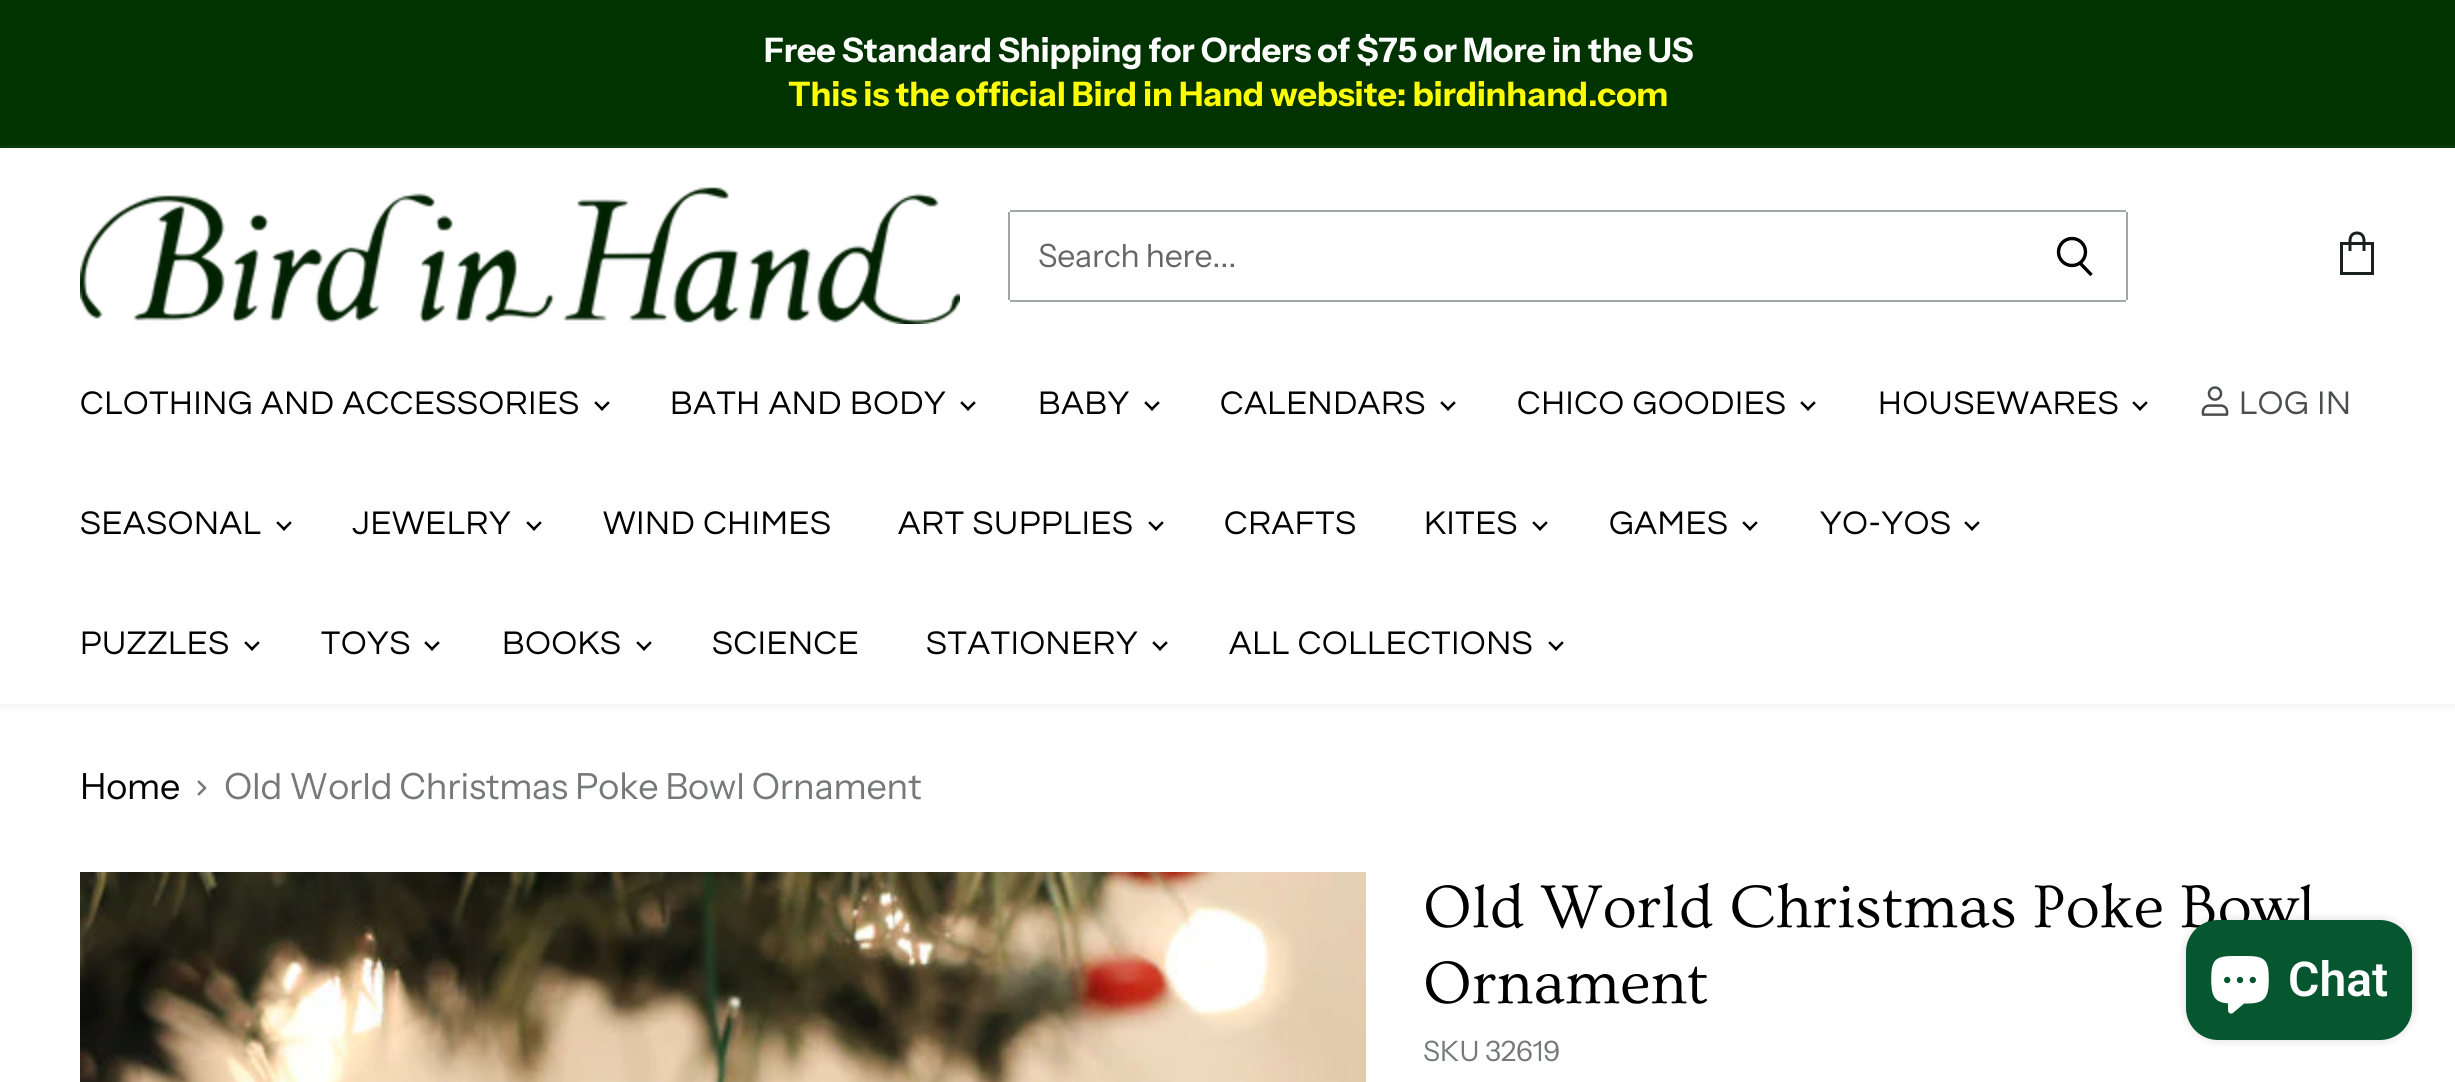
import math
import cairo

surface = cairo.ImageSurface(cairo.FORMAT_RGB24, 2455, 1082)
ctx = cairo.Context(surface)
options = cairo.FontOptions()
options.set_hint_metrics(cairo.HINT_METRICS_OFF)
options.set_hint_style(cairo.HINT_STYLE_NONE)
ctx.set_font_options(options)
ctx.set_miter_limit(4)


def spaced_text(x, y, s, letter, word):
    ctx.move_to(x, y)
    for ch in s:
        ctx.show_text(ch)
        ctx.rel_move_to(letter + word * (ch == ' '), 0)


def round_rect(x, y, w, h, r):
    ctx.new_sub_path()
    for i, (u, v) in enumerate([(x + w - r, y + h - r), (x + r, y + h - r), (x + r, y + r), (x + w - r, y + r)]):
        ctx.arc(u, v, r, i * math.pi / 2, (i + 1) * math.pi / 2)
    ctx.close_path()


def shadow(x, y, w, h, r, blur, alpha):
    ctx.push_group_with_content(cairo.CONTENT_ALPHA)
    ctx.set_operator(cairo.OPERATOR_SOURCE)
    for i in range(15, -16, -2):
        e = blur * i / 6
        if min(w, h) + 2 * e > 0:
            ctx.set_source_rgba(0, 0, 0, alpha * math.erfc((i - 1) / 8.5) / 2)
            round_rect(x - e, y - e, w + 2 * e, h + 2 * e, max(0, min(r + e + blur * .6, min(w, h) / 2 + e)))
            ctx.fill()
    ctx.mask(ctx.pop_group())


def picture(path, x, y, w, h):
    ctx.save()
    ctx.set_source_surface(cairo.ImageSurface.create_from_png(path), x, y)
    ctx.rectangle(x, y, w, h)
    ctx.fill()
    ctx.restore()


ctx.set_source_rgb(1, 1, 1)
ctx.paint()
ctx.set_source_rgb(0, 0.2, 0)
ctx.rectangle(0, 0, 2455, 148)
ctx.fill()
ctx.select_font_face("Instrument Sans", cairo.FONT_SLANT_NORMAL, cairo.FONT_WEIGHT_BOLD)
ctx.set_font_size(33.75)
ctx.set_source_rgb(1, 1, 1)
spaced_text(764, 62, "Free Standard Shipping for Orders of $75 or More in the US", -0.17, 0)
ctx.set_source_rgb(1, 1, 0)
spaced_text(788, 106, "This is the official Bird in Hand website: birdinhand.com", -0.17, 0)
ctx.save()
ctx.set_fill_rule(cairo.FILL_RULE_EVEN_ODD)
ctx.new_path()
ctx.move_to(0, 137)
ctx.line_to(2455, 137)
ctx.line_to(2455, 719)
ctx.line_to(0, 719)
ctx.close_path()
ctx.move_to(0, 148)
ctx.line_to(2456, 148)
ctx.line_to(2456, 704)
ctx.line_to(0, 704)
ctx.close_path()
ctx.clip()
ctx.set_source_rgb(0.729, 0.753, 0.745)
shadow(0, 150, 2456, 556, 0, 4, 0.25)
ctx.restore()
picture("img1.png", 80, 187, 880, 137)
ctx.set_source_rgb(0.631, 0.651, 0.643)
ctx.rectangle(1010, 210, 1116, 2)
ctx.fill()
ctx.rectangle(2126, 212, 2, 88)
ctx.fill()
ctx.rectangle(1010, 300, 1116, 2)
ctx.fill()
ctx.new_path()
ctx.move_to(2091.5, 275)
ctx.line_to(2080, 263)
ctx.set_source_rgb(0, 0, 0)
ctx.set_line_width(3.4)
ctx.stroke()
ctx.arc(2072, 252, 13.5, 0, 2 * math.pi)
ctx.stroke()
ctx.set_source_rgb(0.631, 0.651, 0.643)
ctx.rectangle(1008, 212, 2, 88)
ctx.fill()
ctx.select_font_face("Instrument Sans")
ctx.set_font_size(32)
ctx.set_source_rgb(0.4, 0.4, 0.4)
spaced_text(1038, 267, "Search here...", -0.2, 0)
ctx.new_path()
ctx.move_to(2341.5, 243.5)
ctx.line_to(2372.5, 243.5)
ctx.line_to(2372.5, 273.5)
ctx.line_to(2341.5, 273.5)
ctx.close_path()
ctx.move_to(2364, 251)
ctx.line_to(2364, 241)
ctx.curve_to(2364, 235.5, 2361, 233, 2357, 233)
ctx.curve_to(2353, 233, 2350, 235.5, 2350, 241)
ctx.line_to(2350, 251)
ctx.set_source_rgb(0.106, 0.129, 0.125)
ctx.set_line_width(3)
ctx.stroke()
ctx.select_font_face("Questrial")
ctx.set_font_size(34)
ctx.set_source_rgb(0, 0, 0)
spaced_text(80, 414, "CLOTHING AND ACCESSORIES", 0.7, 0)
picture("img2.png", 594, 401, 16, 10)
spaced_text(670, 414, "BATH AND BODY", 0.7, 0)
picture("img2.png", 960, 401, 16, 10)
spaced_text(1038, 414, "BABY", 0.7, 0)
picture("img2.png", 1144, 401, 16, 10)
spaced_text(1220, 414, "CALENDARS", 0.7, 0)
picture("img2.png", 1440, 401, 16, 10)
spaced_text(1517, 414, "CHICO GOODIES", 0.7, 0)
picture("img2.png", 1800, 401, 16, 10)
spaced_text(1878, 414, "HOUSEWARES", 0.7, 0)
picture("img2.png", 2132, 401, 16, 10)
spaced_text(80, 534, "SEASONAL", 0.7, 0)
picture("img2.png", 276, 521, 16, 10)
spaced_text(352, 534, "JEWELRY", 0.7, 0)
picture("img2.png", 526, 521, 16, 10)
spaced_text(603, 534, "WIND CHIMES", 0.7, 0)
spaced_text(898, 534, "ART SUPPLIES", 0.7, 0)
picture("img2.png", 1148, 521, 16, 10)
spaced_text(1224, 534, "CRAFTS", 0.7, 0)
spaced_text(1424, 534, "KITES", 0.7, 0)
picture("img2.png", 1532, 521, 16, 10)
spaced_text(1609, 534, "GAMES", 0.7, 0)
picture("img2.png", 1742, 521, 16, 10)
spaced_text(1820, 534, "YO-YOS", 0.7, 0)
picture("img2.png", 1964, 521, 16, 10)
spaced_text(80, 654, "PUZZLES", 0.7, 0)
picture("img2.png", 244, 641, 16, 10)
spaced_text(321, 654, "TOYS", 0.7, 0)
picture("img2.png", 424, 641, 16, 10)
spaced_text(502, 654, "BOOKS", 0.7, 0)
picture("img2.png", 636, 641, 16, 10)
spaced_text(712, 654, "SCIENCE", 0.7, 0)
spaced_text(926, 654, "STATIONERY", 0.7, 0)
picture("img2.png", 1152, 641, 16, 10)
spaced_text(1229, 654, "ALL COLLECTIONS", 0.7, 0)
picture("img2.png", 1548, 641, 16, 10)
picture("img3.png", 2201, 386, 28, 30)
ctx.set_source_rgb(0.286, 0.302, 0.302)
spaced_text(2239, 414, "LOG IN", 0.7, 0)
ctx.select_font_face("Instrument Sans")
ctx.set_font_size(36)
ctx.set_source_rgb(0, 0, 0)
spaced_text(80, 799, "Home", -0.2, 0)
ctx.save()
ctx.new_path()
ctx.move_to(197.5, 795.5)
ctx.line_to(197.5, 779.5)
ctx.line_to(207.5, 779.5)
ctx.line_to(207.5, 795.5)
ctx.close_path()
ctx.clip()
ctx.new_path()
ctx.move_to(198, 795)
ctx.line_to(205, 788)
ctx.line_to(198, 781)
ctx.set_source_rgb(0.459, 0.475, 0.467)
ctx.set_line_width(2.5)
ctx.stroke()
ctx.restore()
ctx.set_source_rgb(0.459, 0.475, 0.467)
spaced_text(224, 799, "Old World Christmas Poke Bowl Ornament", -0.2, 0)
picture("img4.png", 80, 872, 1286, 210)
ctx.select_font_face("Ovo")
ctx.set_font_size(63)
ctx.set_source_rgb(0, 0, 0)
ctx.move_to(1423, 927)
ctx.show_text("Old World Christmas Poke Bowl")
ctx.move_to(1423, 1003)
ctx.show_text("Ornament")
ctx.select_font_face("Instrument Sans")
ctx.set_font_size(28)
ctx.set_source_rgb(0.459, 0.475, 0.467)
ctx.move_to(1423, 1061)
ctx.show_text("SKU")
spaced_text(1485, 1061, "32619", -0.2, 0)
ctx.set_source_rgb(0, 0, 0)
shadow(2186, 920, 226, 120, 32, 5, 0.15)
ctx.set_source_rgb(0.024, 0.337, 0.184)
round_rect(2186, 920, 226, 120, 32)
ctx.fill()
picture("img5.png", 2211, 956, 58, 58)
ctx.select_font_face("Roboto SemiBold")
ctx.set_font_size(48)
ctx.set_source_rgb(1, 1, 1)
ctx.move_to(2288, 996)
ctx.show_text("Chat")
surface.write_to_png("page.png")
